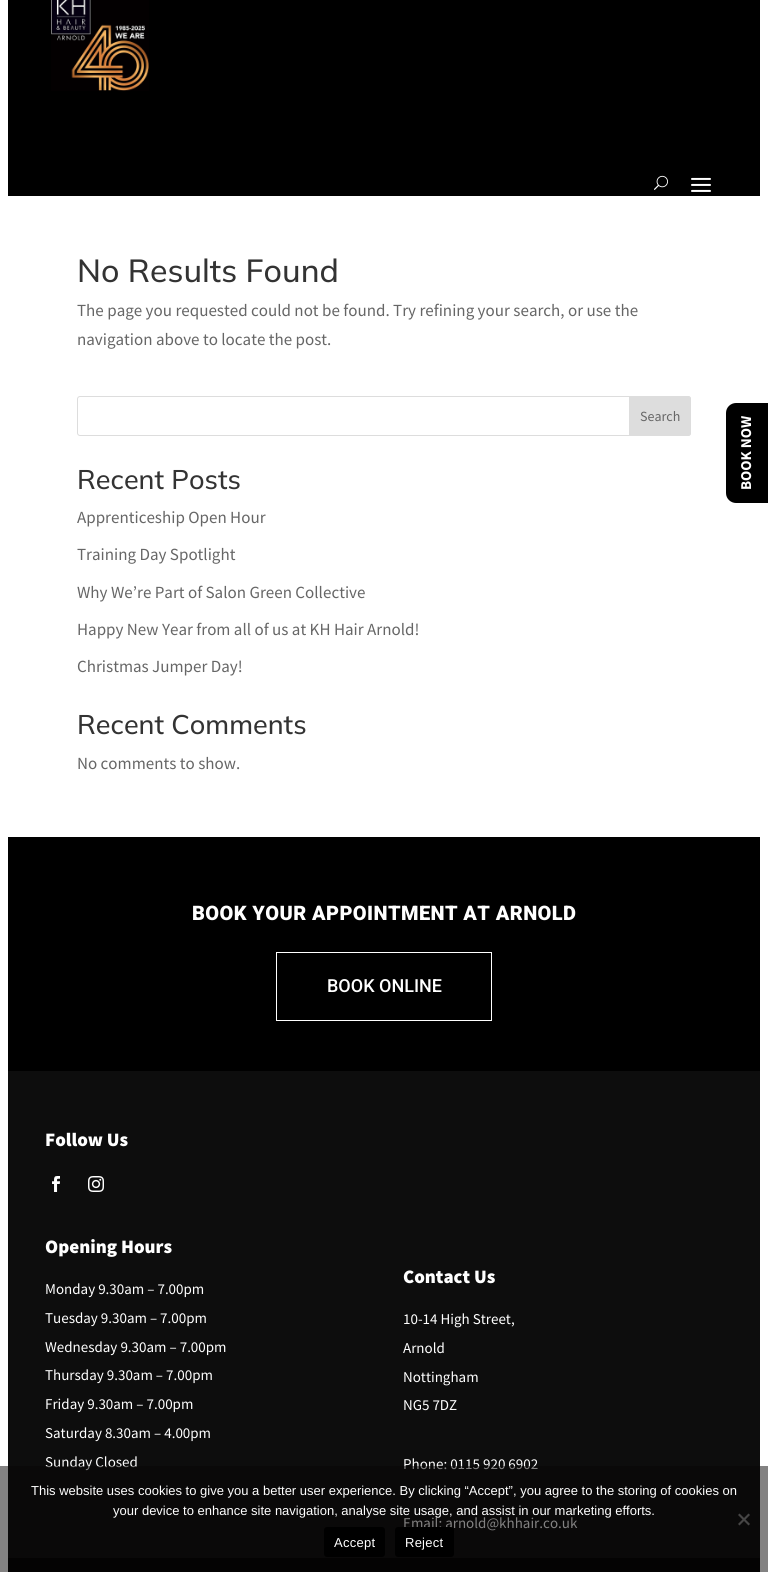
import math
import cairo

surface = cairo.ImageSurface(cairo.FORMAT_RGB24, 768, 1572)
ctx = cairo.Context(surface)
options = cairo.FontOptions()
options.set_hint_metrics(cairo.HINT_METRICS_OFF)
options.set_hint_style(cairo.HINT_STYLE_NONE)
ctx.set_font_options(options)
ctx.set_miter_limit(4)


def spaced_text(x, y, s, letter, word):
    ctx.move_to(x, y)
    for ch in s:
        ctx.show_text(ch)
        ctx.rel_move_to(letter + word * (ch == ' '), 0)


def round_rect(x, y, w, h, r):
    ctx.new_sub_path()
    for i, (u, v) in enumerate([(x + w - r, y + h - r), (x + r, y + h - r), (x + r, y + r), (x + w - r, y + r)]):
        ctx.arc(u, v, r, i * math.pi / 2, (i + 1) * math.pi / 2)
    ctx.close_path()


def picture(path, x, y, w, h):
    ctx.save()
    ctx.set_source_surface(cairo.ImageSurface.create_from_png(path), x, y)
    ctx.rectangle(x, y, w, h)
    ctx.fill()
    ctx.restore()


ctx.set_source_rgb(1, 1, 1)
ctx.paint()
ctx.set_source_rgb(0, 0, 0)
ctx.rectangle(8, 0, 752, 196)
ctx.fill()
picture("img1.png", 51, 0, 98, 91)
picture("img2.png", 654, 175, 14, 15)
picture("img3.png", 691, 177, 20, 15)
ctx.select_font_face("Mulish ExtraLight")
ctx.set_font_size(32)
ctx.set_source_rgb(0.2, 0.2, 0.2)
ctx.move_to(77, 282)
ctx.show_text("No Results Found")
ctx.select_font_face("Source Sans Pro")
ctx.set_font_size(17)
ctx.set_source_rgb(0.4, 0.4, 0.4)
ctx.move_to(77, 316)
ctx.show_text("The page you requested could not be found. Try refining your search, or use the")
ctx.move_to(77, 345)
ctx.show_text("navigation above to locate the post.")
round_rect(77.5, 396.5, 613, 39, 2.5)
ctx.set_source_rgb(0.867, 0.867, 0.867)
ctx.set_line_width(1)
ctx.stroke()
ctx.new_path()
ctx.move_to(629.5, 396.5)
ctx.line_to(688, 396.5)
ctx.curve_to(689.5, 396.5, 690.5, 397.5, 690.5, 399)
ctx.line_to(690.5, 433)
ctx.curve_to(690.5, 434.5, 689.5, 435.5, 688, 435.5)
ctx.line_to(629.5, 435.5)
ctx.close_path()
ctx.fill_preserve()
ctx.stroke()
ctx.set_font_size(14)
ctx.set_source_rgb(0.4, 0.4, 0.4)
ctx.move_to(640, 421)
ctx.show_text("Search")
ctx.select_font_face("Mulish ExtraLight")
ctx.set_font_size(27)
ctx.set_source_rgb(0.2, 0.2, 0.2)
ctx.move_to(77, 489)
ctx.show_text("Recent Posts")
ctx.select_font_face("Source Sans Pro")
ctx.set_font_size(17)
ctx.set_source_rgb(0.4, 0.4, 0.4)
ctx.move_to(77, 523)
ctx.show_text("Apprenticeship Open Hour")
ctx.move_to(77, 560)
ctx.show_text("Training Day Spotlight")
ctx.move_to(77, 598)
ctx.show_text("Why We’re Part of Salon Green Collective")
ctx.move_to(77, 635)
ctx.show_text("Happy New Year from all of us at KH Hair Arnold!")
ctx.move_to(77, 672)
ctx.show_text("Christmas Jumper Day!")
ctx.select_font_face("Mulish ExtraLight")
ctx.set_font_size(27)
ctx.set_source_rgb(0.2, 0.2, 0.2)
ctx.move_to(77, 734)
ctx.show_text("Recent Comments")
ctx.select_font_face("Source Sans Pro")
ctx.set_font_size(17)
ctx.set_source_rgb(0.4, 0.4, 0.4)
ctx.move_to(77, 769)
ctx.show_text("No comments to show.")
ctx.set_source_rgb(0, 0, 0)
ctx.rectangle(8, 837, 752, 234)
ctx.fill()
ctx.select_font_face("Roboto Black")
ctx.set_font_size(20)
ctx.set_source_rgb(1, 1, 1)
spaced_text(192, 920, "BOOK YOUR APPOINTMENT AT ARNOLD", 0.4, 0)
ctx.rectangle(276.5, 952.5, 215, 68)
ctx.stroke()
ctx.select_font_face("Roboto Medium")
ctx.set_font_size(18)
ctx.move_to(327, 992)
ctx.show_text("BOOK ONLINE")
ctx.set_source_rgb(0.051, 0.051, 0.051)
ctx.rectangle(8, 1071, 752, 487)
ctx.fill()
ctx.select_font_face("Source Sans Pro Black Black")
ctx.set_font_size(19)
ctx.set_source_rgb(1, 1, 1)
ctx.move_to(45, 1146)
ctx.show_text("Follow Us")
picture("img4.png", 52, 1176, 8, 16)
picture("img5.png", 88, 1176, 16, 16)
ctx.move_to(45, 1253)
ctx.show_text("Opening Hours")
ctx.select_font_face("Source Sans Pro")
ctx.set_font_size(15)
ctx.move_to(45, 1294)
ctx.show_text("Monday 9.30am – 7.00pm")
ctx.move_to(45, 1323)
ctx.show_text("Tuesday 9.30am – 7.00pm")
ctx.move_to(45, 1352)
ctx.show_text("Wednesday 9.30am – 7.00pm")
ctx.move_to(45, 1380)
ctx.show_text("Thursday 9.30am – 7.00pm")
ctx.move_to(45, 1409)
ctx.show_text("Friday 9.30am – 7.00pm")
ctx.move_to(45, 1438)
ctx.show_text("Saturday 8.30am – 4.00pm")
ctx.move_to(45, 1467)
ctx.show_text("Sunday Closed")
ctx.select_font_face("Source Sans Pro Black Black")
ctx.set_font_size(19)
ctx.move_to(403, 1283)
ctx.show_text("Contact Us")
ctx.select_font_face("Source Sans Pro")
ctx.set_font_size(15)
ctx.move_to(403, 1324)
ctx.show_text("10-14 High Street,")
ctx.move_to(403, 1353)
ctx.show_text("Arnold")
ctx.move_to(403, 1382)
ctx.show_text("Nottingham")
ctx.move_to(403, 1410)
ctx.show_text("NG5 7DZ")
ctx.move_to(403, 1469)
ctx.show_text("Phone: 0115 920 6902")
ctx.move_to(403, 1528)
ctx.show_text("Email: arnold@khhair.co.uk")
ctx.set_source_rgb(0, 0, 0)
ctx.rectangle(8, 1558, 752, 14)
ctx.fill()
ctx.new_path()
ctx.move_to(726, 493)
ctx.line_to(726, 413)
ctx.curve_to(726, 407, 731, 403, 736, 403)
ctx.line_to(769, 403)
ctx.line_to(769, 503)
ctx.line_to(736, 503)
ctx.curve_to(731, 503, 726, 499, 726, 493)
ctx.close_path()
ctx.fill()
ctx.select_font_face("Source Sans Pro", cairo.FONT_SLANT_NORMAL, cairo.FONT_WEIGHT_BOLD)
ctx.set_source_rgb(1, 1, 1)
ctx.save()
ctx.translate(751, 490)
ctx.rotate(-90 * math.pi / 180)
ctx.move_to(0, 0)
ctx.show_text("BOOK NOW")
ctx.restore()
ctx.set_source_rgba(0.039, 0.031, 0.031, 0.5)
ctx.rectangle(0, 1466, 768, 106)
ctx.fill()
ctx.select_font_face("Liberation Sans")
ctx.set_font_size(13)
ctx.set_source_rgb(1, 1, 1)
ctx.move_to(31, 1495)
ctx.show_text("This website uses cookies to give you a better user experience. By clicking “Accept”, you agree to the storing of cookies on")
ctx.move_to(113, 1515)
ctx.show_text("your device to enhance site navigation, analyse site usage, and assist in our marketing efforts.")
ctx.set_source_rgb(0.275, 0.271, 0.271)
ctx.new_path()
ctx.move_to(748.5, 1513.5)
ctx.line_to(750, 1515)
ctx.line_to(739.5, 1525.5)
ctx.line_to(738, 1524)
ctx.close_path()
ctx.fill()
ctx.new_path()
ctx.move_to(738, 1515)
ctx.line_to(739.5, 1513.5)
ctx.line_to(750, 1524)
ctx.line_to(748.5, 1525.5)
ctx.close_path()
ctx.fill()
ctx.set_source_rgb(0, 0, 0)
round_rect(324, 1527, 61, 30, 3)
ctx.fill()
ctx.set_source_rgb(1, 1, 1)
spaced_text(334, 1547, "Accept", 0.25, 0)
ctx.set_source_rgb(0, 0, 0)
round_rect(395, 1527, 59, 30, 3)
ctx.fill()
ctx.set_source_rgb(1, 1, 1)
spaced_text(405, 1547, "Reject", 0.25, 0)
surface.write_to_png("page.png")
